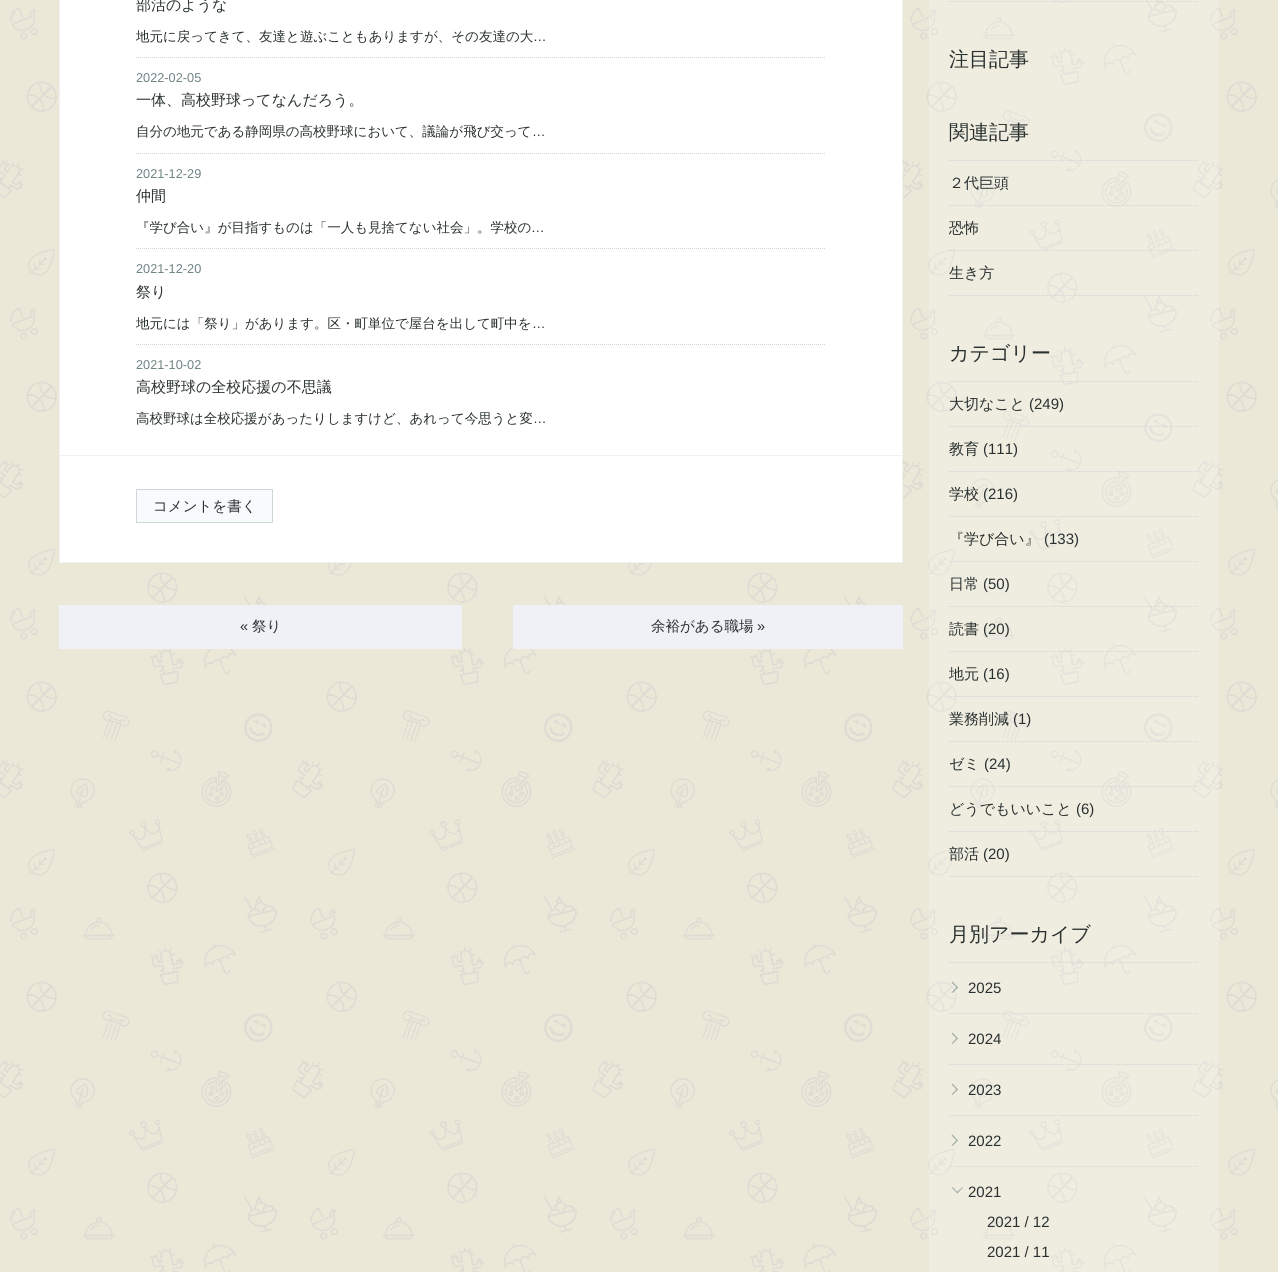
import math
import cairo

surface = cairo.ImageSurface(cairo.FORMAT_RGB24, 1278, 1272)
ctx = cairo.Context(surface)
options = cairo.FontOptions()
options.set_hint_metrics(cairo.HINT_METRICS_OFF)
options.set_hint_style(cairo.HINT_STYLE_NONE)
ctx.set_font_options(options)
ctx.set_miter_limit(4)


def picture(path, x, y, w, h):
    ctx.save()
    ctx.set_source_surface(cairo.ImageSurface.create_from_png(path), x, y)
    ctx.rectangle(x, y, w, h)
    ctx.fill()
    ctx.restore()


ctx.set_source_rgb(1, 1, 1)
ctx.paint()
picture("img1.png", 0, 0, 1278, 1272)
ctx.set_source_rgb(1, 1, 1)
ctx.rectangle(59.5, -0.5, 843, 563)
ctx.fill_preserve()
ctx.set_source_rgb(0.941, 0.945, 0.945)
ctx.set_line_width(1)
ctx.stroke()
ctx.select_font_face("WenQuanYi Zen Hei Medium")
ctx.set_font_size(15)
ctx.set_source_rgb(0.161, 0.188, 0.188)
ctx.move_to(136, 10)
ctx.show_text("部活のような")
ctx.set_font_size(13.5)
ctx.move_to(136, 41)
ctx.show_text("地元に戻ってきて、友達と遊ぶこともありますが、その友達の大")
ctx.select_font_face("Liberation Sans")
ctx.move_to(533, 41)
ctx.show_text("…")
ctx.new_path()
ctx.move_to(136, 57.5)
ctx.line_to(826, 57.5)
ctx.set_source_rgb(0.812, 0.847, 0.847)
ctx.set_dash([1, 1])
ctx.stroke()
ctx.set_font_size(12.75)
ctx.set_source_rgb(0.435, 0.514, 0.514)
ctx.move_to(136, 82)
ctx.show_text("2022-02-05")
ctx.select_font_face("WenQuanYi Zen Hei Medium")
ctx.set_font_size(15)
ctx.set_source_rgb(0.161, 0.188, 0.188)
ctx.move_to(136, 105)
ctx.show_text("一体、高校野球ってなんだろう。")
ctx.set_font_size(13.5)
ctx.move_to(136, 136)
ctx.show_text("自分の地元である静岡県の高校野球において、議論が飛び交って")
ctx.select_font_face("Liberation Sans")
ctx.move_to(532, 136)
ctx.show_text("…")
ctx.new_path()
ctx.move_to(136, 153.5)
ctx.line_to(826, 153.5)
ctx.set_source_rgb(0.812, 0.847, 0.847)
ctx.stroke()
ctx.set_font_size(12.75)
ctx.set_source_rgb(0.435, 0.514, 0.514)
ctx.move_to(136, 178)
ctx.show_text("2021-12-29")
ctx.select_font_face("WenQuanYi Zen Hei Medium")
ctx.set_font_size(15)
ctx.set_source_rgb(0.161, 0.188, 0.188)
ctx.move_to(136, 201)
ctx.show_text("仲間")
ctx.set_font_size(13.5)
ctx.move_to(136, 232)
ctx.show_text("『学び合い』が目指すものは「一人も見捨てない社会」。学校の")
ctx.select_font_face("Liberation Sans")
ctx.move_to(531, 232)
ctx.show_text("…")
ctx.new_path()
ctx.move_to(136, 248.5)
ctx.line_to(826, 248.5)
ctx.set_source_rgb(0.812, 0.847, 0.847)
ctx.stroke()
ctx.set_font_size(12.75)
ctx.set_source_rgb(0.435, 0.514, 0.514)
ctx.move_to(136, 273)
ctx.show_text("2021-12-20")
ctx.select_font_face("WenQuanYi Zen Hei Medium")
ctx.set_font_size(15)
ctx.set_source_rgb(0.161, 0.188, 0.188)
ctx.move_to(136, 297)
ctx.show_text("祭り")
ctx.set_font_size(13.5)
ctx.move_to(136, 328)
ctx.show_text("地元には「祭り」があります。区・町単位で屋台を出して町中を")
ctx.select_font_face("Liberation Sans")
ctx.move_to(532, 328)
ctx.show_text("…")
ctx.new_path()
ctx.move_to(136, 344.5)
ctx.line_to(826, 344.5)
ctx.set_source_rgb(0.812, 0.847, 0.847)
ctx.stroke()
ctx.set_font_size(12.75)
ctx.set_source_rgb(0.435, 0.514, 0.514)
ctx.move_to(136, 369)
ctx.show_text("2021-10-02")
ctx.select_font_face("WenQuanYi Zen Hei Medium")
ctx.set_font_size(15)
ctx.set_source_rgb(0.161, 0.188, 0.188)
ctx.move_to(136, 392)
ctx.show_text("高校野球の全校応援の不思議")
ctx.set_font_size(13.5)
ctx.move_to(136, 423)
ctx.show_text("高校野球は全校応援があったりしますけど、あれって今思うと変")
ctx.select_font_face("Liberation Sans")
ctx.move_to(533, 423)
ctx.show_text("…")
ctx.set_source_rgb(0.941, 0.945, 0.945)
ctx.rectangle(60, 455, 842, 1)
ctx.fill()
ctx.set_source_rgb(0.976, 0.98, 0.984)
ctx.rectangle(136.5, 489.5, 136, 33)
ctx.fill_preserve()
ctx.set_source_rgb(0.812, 0.847, 0.847)
ctx.set_dash([])
ctx.stroke()
ctx.select_font_face("WenQuanYi Zen Hei Medium")
ctx.set_font_size(14.5)
ctx.set_source_rgb(0.161, 0.188, 0.188)
ctx.move_to(153, 511)
ctx.show_text("コメントを書く")
ctx.set_source_rgb(0.937, 0.945, 0.961)
ctx.rectangle(59, 605, 403, 44)
ctx.fill()
ctx.select_font_face("Liberation Sans")
ctx.set_source_rgb(0.161, 0.188, 0.188)
ctx.move_to(240, 631)
ctx.show_text("«")
ctx.select_font_face("WenQuanYi Zen Hei Medium")
ctx.move_to(252, 631)
ctx.show_text("祭り")
ctx.set_source_rgb(0.937, 0.945, 0.961)
ctx.rectangle(513, 605, 390, 44)
ctx.fill()
ctx.set_source_rgb(0.161, 0.188, 0.188)
ctx.move_to(651, 631)
ctx.show_text("余裕がある職場")
ctx.select_font_face("Liberation Sans")
ctx.move_to(757, 631)
ctx.show_text("»")
ctx.set_source_rgba(1, 1, 1, 0.2)
ctx.rectangle(929, 0, 290, 1272)
ctx.fill()
ctx.new_path()
ctx.move_to(949, 1.5)
ctx.line_to(1199, 1.5)
ctx.set_source_rgb(0.812, 0.847, 0.847)
ctx.set_dash([1, 1])
ctx.stroke()
ctx.select_font_face("WenQuanYi Zen Hei Medium")
ctx.set_font_size(20)
ctx.set_source_rgb(0.161, 0.188, 0.188)
ctx.move_to(949, 66)
ctx.show_text("注目記事")
ctx.move_to(949, 139)
ctx.show_text("関連記事")
ctx.new_path()
ctx.move_to(949, 160.5)
ctx.line_to(1199, 160.5)
ctx.set_source_rgb(0.812, 0.847, 0.847)
ctx.stroke()
ctx.set_font_size(15)
ctx.set_source_rgb(0.161, 0.188, 0.188)
ctx.move_to(949, 188)
ctx.show_text("２代巨頭")
ctx.new_path()
ctx.move_to(949, 205.5)
ctx.line_to(1199, 205.5)
ctx.set_source_rgb(0.812, 0.847, 0.847)
ctx.stroke()
ctx.set_source_rgb(0.161, 0.188, 0.188)
ctx.move_to(949, 233)
ctx.show_text("恐怖")
ctx.new_path()
ctx.move_to(949, 250.5)
ctx.line_to(1199, 250.5)
ctx.set_source_rgb(0.812, 0.847, 0.847)
ctx.stroke()
ctx.new_path()
ctx.move_to(949, 295.5)
ctx.line_to(1199, 295.5)
ctx.stroke()
ctx.set_source_rgb(0.161, 0.188, 0.188)
ctx.move_to(949, 278)
ctx.show_text("生き方")
ctx.set_font_size(20)
ctx.move_to(949, 360)
ctx.show_text("カテゴリー")
ctx.new_path()
ctx.move_to(949, 381.5)
ctx.line_to(1199, 381.5)
ctx.set_source_rgb(0.812, 0.847, 0.847)
ctx.stroke()
ctx.set_font_size(15)
ctx.set_source_rgb(0.161, 0.188, 0.188)
ctx.move_to(949, 409)
ctx.show_text("大切なこと")
ctx.select_font_face("Liberation Sans")
ctx.move_to(1029, 409)
ctx.show_text("(249)")
ctx.new_path()
ctx.move_to(949, 426.5)
ctx.line_to(1199, 426.5)
ctx.set_source_rgb(0.812, 0.847, 0.847)
ctx.stroke()
ctx.select_font_face("WenQuanYi Zen Hei Medium")
ctx.set_source_rgb(0.161, 0.188, 0.188)
ctx.move_to(949, 454)
ctx.show_text("教育")
ctx.select_font_face("Liberation Sans")
ctx.move_to(983, 454)
ctx.show_text("(111)")
ctx.new_path()
ctx.move_to(949, 471.5)
ctx.line_to(1199, 471.5)
ctx.set_source_rgb(0.812, 0.847, 0.847)
ctx.stroke()
ctx.select_font_face("WenQuanYi Zen Hei Medium")
ctx.set_source_rgb(0.161, 0.188, 0.188)
ctx.move_to(949, 499)
ctx.show_text("学校")
ctx.select_font_face("Liberation Sans")
ctx.move_to(983, 499)
ctx.show_text("(216)")
ctx.new_path()
ctx.move_to(949, 516.5)
ctx.line_to(1199, 516.5)
ctx.set_source_rgb(0.812, 0.847, 0.847)
ctx.stroke()
ctx.select_font_face("WenQuanYi Zen Hei Medium")
ctx.set_source_rgb(0.161, 0.188, 0.188)
ctx.move_to(949, 544)
ctx.show_text("『学び合い』")
ctx.select_font_face("Liberation Sans")
ctx.move_to(1044, 544)
ctx.show_text("(133)")
ctx.new_path()
ctx.move_to(949, 561.5)
ctx.line_to(1199, 561.5)
ctx.set_source_rgb(0.812, 0.847, 0.847)
ctx.stroke()
ctx.select_font_face("WenQuanYi Zen Hei Medium")
ctx.set_source_rgb(0.161, 0.188, 0.188)
ctx.move_to(949, 589)
ctx.show_text("日常")
ctx.select_font_face("Liberation Sans")
ctx.move_to(983, 589)
ctx.show_text("(50)")
ctx.new_path()
ctx.move_to(949, 606.5)
ctx.line_to(1199, 606.5)
ctx.set_source_rgb(0.812, 0.847, 0.847)
ctx.stroke()
ctx.select_font_face("WenQuanYi Zen Hei Medium")
ctx.set_source_rgb(0.161, 0.188, 0.188)
ctx.move_to(949, 634)
ctx.show_text("読書")
ctx.select_font_face("Liberation Sans")
ctx.move_to(983, 634)
ctx.show_text("(20)")
ctx.new_path()
ctx.move_to(949, 651.5)
ctx.line_to(1199, 651.5)
ctx.set_source_rgb(0.812, 0.847, 0.847)
ctx.stroke()
ctx.select_font_face("WenQuanYi Zen Hei Medium")
ctx.set_source_rgb(0.161, 0.188, 0.188)
ctx.move_to(949, 679)
ctx.show_text("地元")
ctx.select_font_face("Liberation Sans")
ctx.move_to(983, 679)
ctx.show_text("(16)")
ctx.new_path()
ctx.move_to(949, 696.5)
ctx.line_to(1199, 696.5)
ctx.set_source_rgb(0.812, 0.847, 0.847)
ctx.stroke()
ctx.select_font_face("WenQuanYi Zen Hei Medium")
ctx.set_source_rgb(0.161, 0.188, 0.188)
ctx.move_to(949, 724)
ctx.show_text("業務削減")
ctx.select_font_face("Liberation Sans")
ctx.move_to(1013, 724)
ctx.show_text("(1)")
ctx.new_path()
ctx.move_to(949, 741.5)
ctx.line_to(1199, 741.5)
ctx.set_source_rgb(0.812, 0.847, 0.847)
ctx.stroke()
ctx.select_font_face("WenQuanYi Zen Hei Medium")
ctx.set_source_rgb(0.161, 0.188, 0.188)
ctx.move_to(949, 769)
ctx.show_text("ゼミ")
ctx.select_font_face("Liberation Sans")
ctx.move_to(984, 769)
ctx.show_text("(24)")
ctx.new_path()
ctx.move_to(949, 786.5)
ctx.line_to(1199, 786.5)
ctx.set_source_rgb(0.812, 0.847, 0.847)
ctx.stroke()
ctx.select_font_face("WenQuanYi Zen Hei Medium")
ctx.set_source_rgb(0.161, 0.188, 0.188)
ctx.move_to(949, 814)
ctx.show_text("どうでもいいこと")
ctx.select_font_face("Liberation Sans")
ctx.move_to(1076, 814)
ctx.show_text("(6)")
ctx.new_path()
ctx.move_to(949, 831.5)
ctx.line_to(1199, 831.5)
ctx.set_source_rgb(0.812, 0.847, 0.847)
ctx.stroke()
ctx.new_path()
ctx.move_to(949, 876.5)
ctx.line_to(1199, 876.5)
ctx.stroke()
ctx.select_font_face("WenQuanYi Zen Hei Medium")
ctx.set_source_rgb(0.161, 0.188, 0.188)
ctx.move_to(949, 859)
ctx.show_text("部活")
ctx.select_font_face("Liberation Sans")
ctx.move_to(983, 859)
ctx.show_text("(20)")
ctx.select_font_face("WenQuanYi Zen Hei Medium")
ctx.set_font_size(20)
ctx.move_to(949, 941)
ctx.show_text("月別アーカイブ")
ctx.new_path()
ctx.move_to(949, 962.5)
ctx.line_to(1199, 962.5)
ctx.set_source_rgb(0.812, 0.847, 0.847)
ctx.stroke()
ctx.set_source_rgb(0.635, 0.678, 0.659)
ctx.new_path()
ctx.move_to(952.5, 981.5)
ctx.line_to(958, 987.5)
ctx.line_to(957, 988)
ctx.line_to(951.5, 982.5)
ctx.close_path()
ctx.fill()
ctx.set_source_rgba(0.435, 0.514, 0.514, 0.6)
ctx.new_path()
ctx.move_to(957, 986.5)
ctx.line_to(958, 987.5)
ctx.line_to(952.5, 993)
ctx.line_to(951.5, 992.5)
ctx.close_path()
ctx.fill()
ctx.select_font_face("Liberation Sans")
ctx.set_font_size(15)
ctx.set_source_rgb(0.161, 0.188, 0.188)
ctx.move_to(968, 993)
ctx.show_text("2025")
ctx.new_path()
ctx.move_to(949, 1013.5)
ctx.line_to(1199, 1013.5)
ctx.set_source_rgb(0.812, 0.847, 0.847)
ctx.stroke()
ctx.set_source_rgb(0.635, 0.678, 0.659)
ctx.new_path()
ctx.move_to(952.5, 1032.5)
ctx.line_to(958, 1038.5)
ctx.line_to(957, 1039)
ctx.line_to(951.5, 1033.5)
ctx.close_path()
ctx.fill()
ctx.new_path()
ctx.move_to(949, 1064.5)
ctx.line_to(1199, 1064.5)
ctx.set_source_rgb(0.812, 0.847, 0.847)
ctx.stroke()
ctx.set_source_rgb(0.635, 0.678, 0.659)
ctx.new_path()
ctx.move_to(957, 1037.5)
ctx.line_to(958, 1038.5)
ctx.line_to(952.5, 1044)
ctx.line_to(951.5, 1043.5)
ctx.close_path()
ctx.move_to(952.5, 1083.5)
ctx.line_to(958, 1089.5)
ctx.line_to(957, 1090)
ctx.line_to(951.5, 1084.5)
ctx.close_path()
ctx.fill()
ctx.set_source_rgb(0.161, 0.188, 0.188)
ctx.move_to(968, 1044)
ctx.show_text("2024")
ctx.new_path()
ctx.move_to(949, 1115.5)
ctx.line_to(1199, 1115.5)
ctx.set_source_rgb(0.812, 0.847, 0.847)
ctx.stroke()
ctx.set_source_rgb(0.635, 0.678, 0.659)
ctx.new_path()
ctx.move_to(957, 1088.5)
ctx.line_to(958, 1089.5)
ctx.line_to(952.5, 1095)
ctx.line_to(951.5, 1094.5)
ctx.close_path()
ctx.move_to(952.5, 1134.5)
ctx.line_to(958, 1140.5)
ctx.line_to(957, 1141)
ctx.line_to(951.5, 1135.5)
ctx.close_path()
ctx.fill()
ctx.set_source_rgb(0.161, 0.188, 0.188)
ctx.move_to(968, 1095)
ctx.show_text("2023")
ctx.new_path()
ctx.move_to(949, 1166.5)
ctx.line_to(1199, 1166.5)
ctx.set_source_rgb(0.812, 0.847, 0.847)
ctx.stroke()
ctx.set_source_rgb(0.635, 0.678, 0.659)
ctx.new_path()
ctx.move_to(957, 1139.5)
ctx.line_to(958, 1140.5)
ctx.line_to(952.5, 1146)
ctx.line_to(951.5, 1145.5)
ctx.close_path()
ctx.move_to(963, 1187.5)
ctx.line_to(957.5, 1193.5)
ctx.line_to(956.5, 1192.5)
ctx.line_to(962.5, 1187)
ctx.close_path()
ctx.fill()
ctx.set_source_rgb(0.161, 0.188, 0.188)
ctx.move_to(968, 1146)
ctx.show_text("2022")
ctx.set_source_rgb(0.635, 0.678, 0.659)
ctx.new_path()
ctx.move_to(958, 1192.5)
ctx.line_to(957.5, 1193.5)
ctx.line_to(951.5, 1187.5)
ctx.line_to(952.5, 1187)
ctx.close_path()
ctx.fill()
ctx.set_source_rgb(0.161, 0.188, 0.188)
ctx.move_to(968, 1197)
ctx.show_text("2021")
ctx.move_to(987, 1227)
ctx.show_text("2021 / 12")
ctx.move_to(987, 1257)
ctx.show_text("2021 / 11")
surface.write_to_png("page.png")
